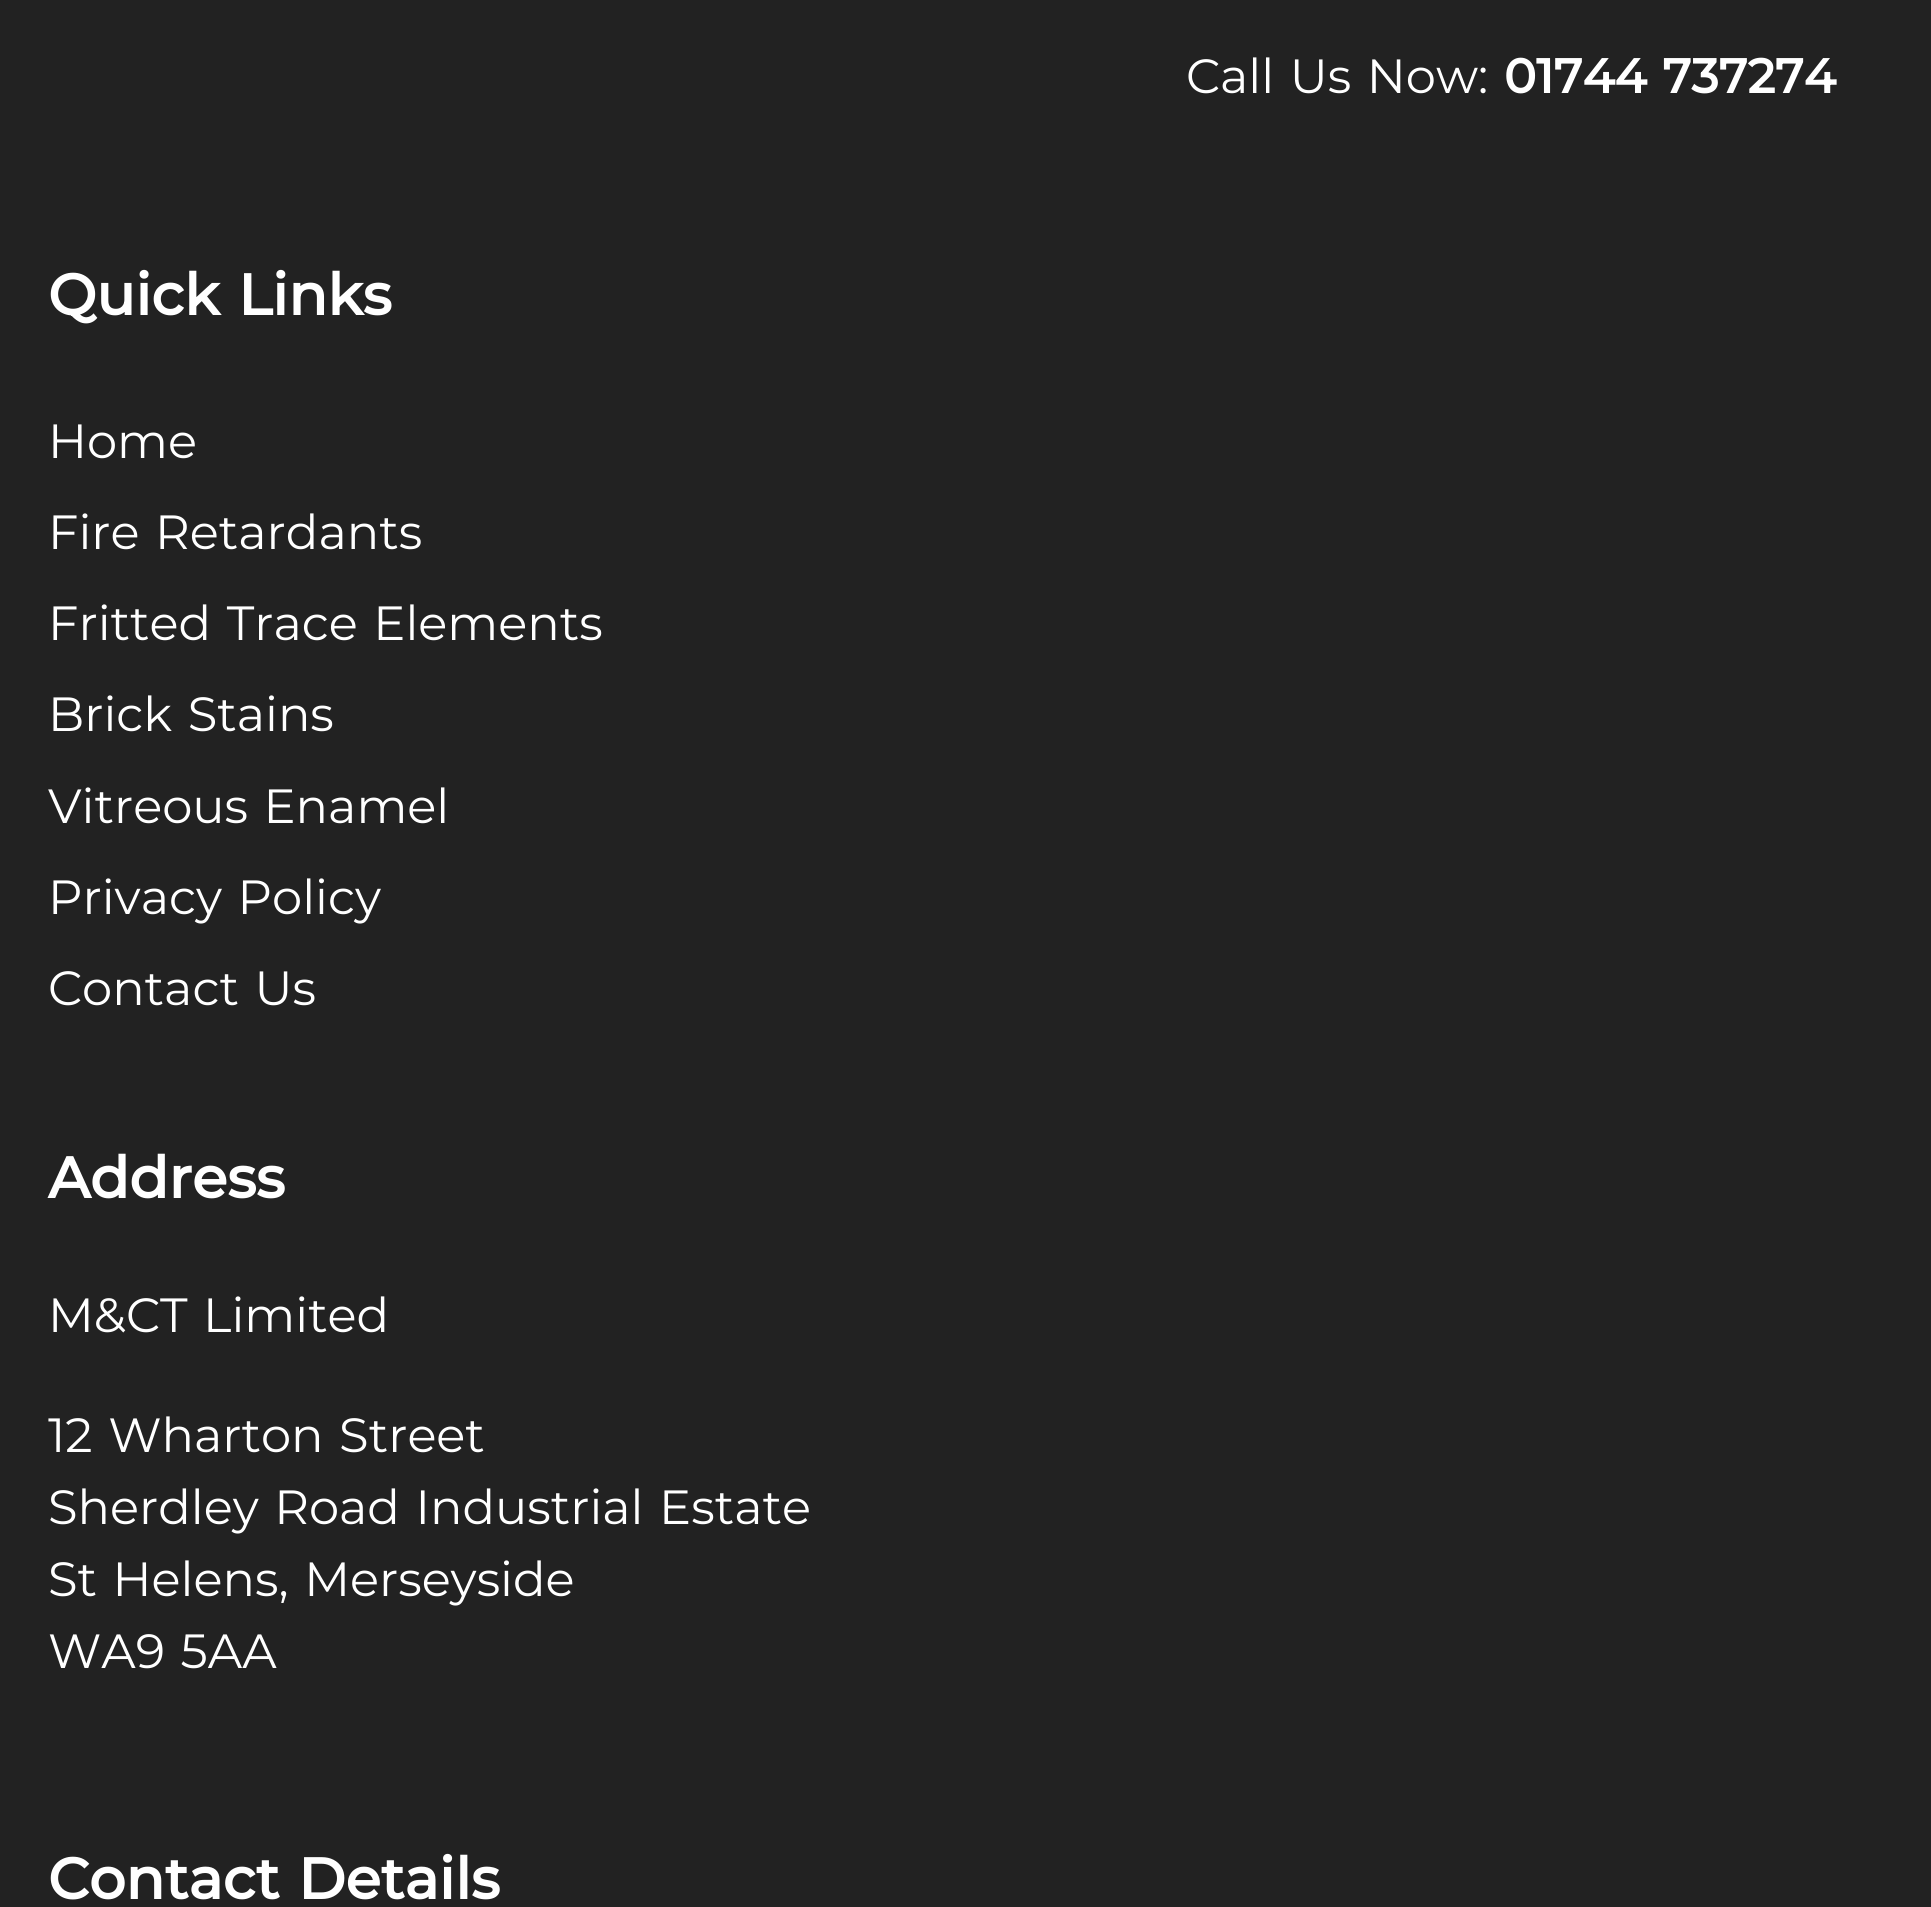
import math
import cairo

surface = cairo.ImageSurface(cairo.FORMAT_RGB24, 1931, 1907)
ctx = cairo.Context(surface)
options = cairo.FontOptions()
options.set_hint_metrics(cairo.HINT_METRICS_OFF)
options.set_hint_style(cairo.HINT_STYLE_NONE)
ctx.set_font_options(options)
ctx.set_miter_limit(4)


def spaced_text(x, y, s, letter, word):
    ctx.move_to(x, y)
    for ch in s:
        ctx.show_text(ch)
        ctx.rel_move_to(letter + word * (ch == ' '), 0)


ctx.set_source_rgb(0.133, 0.133, 0.133)
ctx.paint()
ctx.select_font_face("Montserrat")
ctx.set_font_size(48)
ctx.set_source_rgb(1, 1, 1)
spaced_text(1186, 93, "Call Us Now:", 0, 3)
ctx.select_font_face("Montserrat", cairo.FONT_SLANT_NORMAL, cairo.FONT_WEIGHT_BOLD)
spaced_text(1504, 93, "01744 737274", 0, 3)
ctx.set_font_size(57.5)
spaced_text(48, 315, "Quick Links", 0, 3)
ctx.select_font_face("Montserrat")
ctx.set_font_size(48)
ctx.move_to(48, 458)
ctx.show_text("Home")
spaced_text(48, 549, "Fire Retardants", 0, 3)
spaced_text(48, 640, "Fritted Trace Elements", 0, 3)
spaced_text(48, 731, "Brick Stains", 0, 3)
spaced_text(48, 823, "Vitreous Enamel", 0, 3)
spaced_text(48, 914, "Privacy Policy", 0, 3)
spaced_text(48, 1005, "Contact Us", 0, 3)
ctx.select_font_face("Montserrat", cairo.FONT_SLANT_NORMAL, cairo.FONT_WEIGHT_BOLD)
ctx.set_font_size(57.5)
ctx.move_to(48, 1198)
ctx.show_text("Address")
ctx.select_font_face("Montserrat")
ctx.set_font_size(48)
spaced_text(48, 1332, "M&CT Limited", 0, 3)
spaced_text(48, 1452, "12 Wharton Street", 0, 3)
spaced_text(48, 1524, "Sherdley Road Industrial Estate", 0, 3)
spaced_text(48, 1596, "St Helens, Merseyside", 0, 3)
spaced_text(48, 1668, "WA9 5AA", 0, 3)
ctx.select_font_face("Montserrat", cairo.FONT_SLANT_NORMAL, cairo.FONT_WEIGHT_BOLD)
ctx.set_font_size(57.5)
spaced_text(48, 1899, "Contact Details", 0, 3)
surface.write_to_png("page.png")
